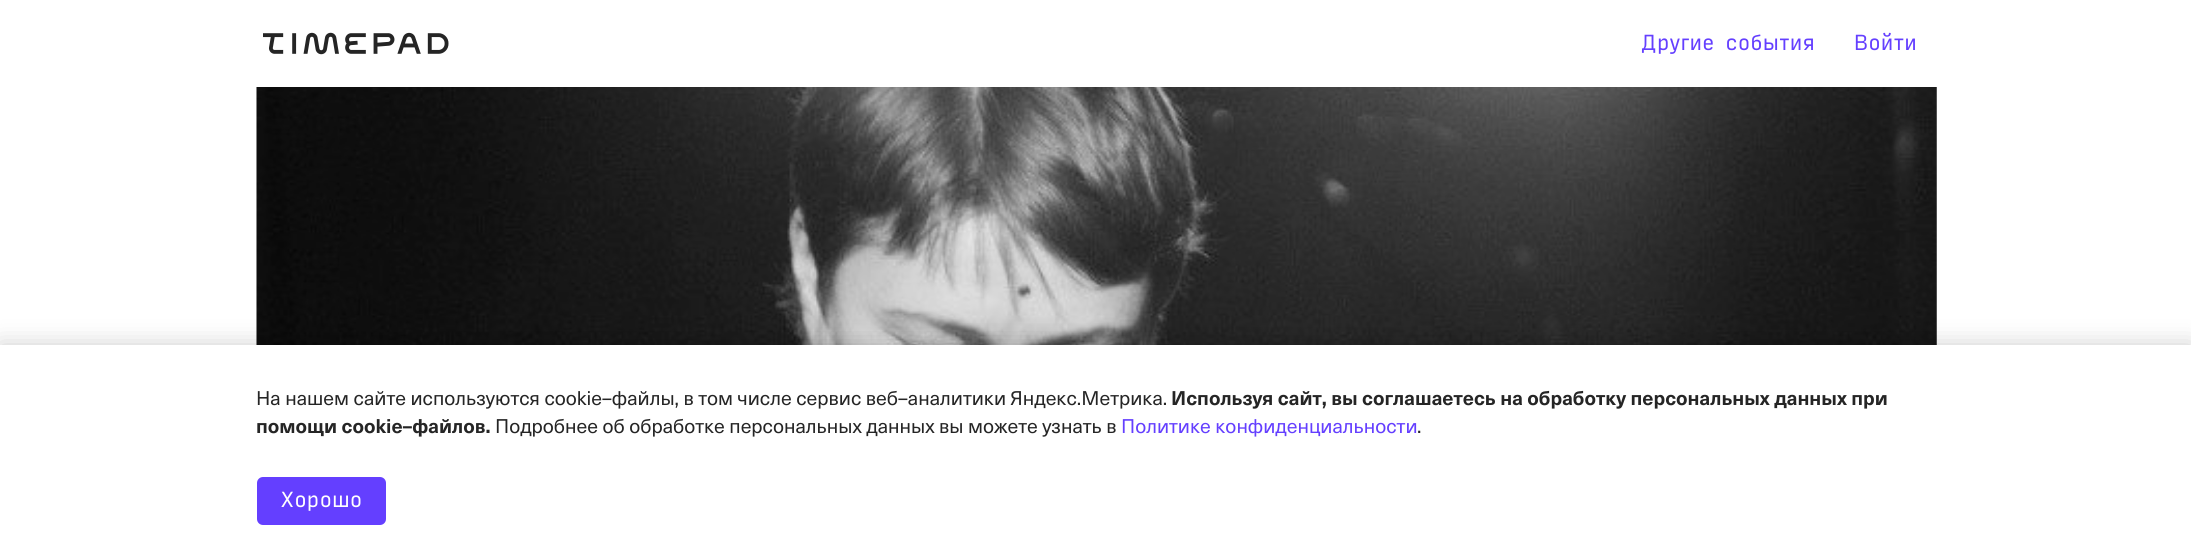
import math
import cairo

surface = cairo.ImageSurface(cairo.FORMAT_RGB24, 2191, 549)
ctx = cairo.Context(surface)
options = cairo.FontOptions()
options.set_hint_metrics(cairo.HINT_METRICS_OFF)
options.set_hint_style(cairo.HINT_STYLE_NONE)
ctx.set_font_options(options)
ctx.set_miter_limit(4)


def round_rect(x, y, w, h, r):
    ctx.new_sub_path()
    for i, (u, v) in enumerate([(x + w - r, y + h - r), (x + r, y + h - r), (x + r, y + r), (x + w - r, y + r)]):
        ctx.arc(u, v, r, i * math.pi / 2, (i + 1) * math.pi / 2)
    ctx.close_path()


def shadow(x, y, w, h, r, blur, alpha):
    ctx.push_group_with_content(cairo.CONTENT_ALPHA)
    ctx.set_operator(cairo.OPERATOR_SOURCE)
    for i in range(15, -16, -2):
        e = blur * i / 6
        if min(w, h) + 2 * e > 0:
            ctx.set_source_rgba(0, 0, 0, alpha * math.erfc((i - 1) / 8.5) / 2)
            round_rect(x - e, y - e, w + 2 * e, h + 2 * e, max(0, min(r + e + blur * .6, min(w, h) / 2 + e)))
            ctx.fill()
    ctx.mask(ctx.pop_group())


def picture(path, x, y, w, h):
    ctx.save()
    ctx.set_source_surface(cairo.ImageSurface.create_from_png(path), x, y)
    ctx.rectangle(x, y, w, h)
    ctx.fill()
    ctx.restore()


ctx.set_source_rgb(1, 1, 1)
ctx.paint()
picture("img1.png", 263, 32, 186, 23)
ctx.select_font_face("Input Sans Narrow")
ctx.set_font_size(21)
ctx.set_source_rgb(0.392, 0.247, 1)
ctx.move_to(1641, 50)
ctx.show_text("Другие события")
ctx.move_to(1854, 50)
ctx.show_text("Войти")
ctx.set_source_rgb(0.529, 0.529, 0.529)
ctx.rectangle(1936, 87, 1, 258)
ctx.fill()
picture("img2.png", 256, 87, 1681, 258)
ctx.set_source_rgb(0, 0, 0)
shadow(0, 345, 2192, 204, 0, 12, 0.2)
ctx.set_source_rgb(1, 1, 1)
ctx.rectangle(0, 345, 2191, 204)
ctx.fill()
ctx.select_font_face("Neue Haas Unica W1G")
ctx.set_font_size(19.5)
ctx.set_source_rgb(0.145, 0.145, 0.145)
ctx.move_to(256, 405)
ctx.show_text("На нашем сайте используются cookie–файлы, в том числе сервис веб–аналитики Яндекс.Метрика.")
ctx.select_font_face("Neue Haas Unica W1G", cairo.FONT_SLANT_NORMAL, cairo.FONT_WEIGHT_BOLD)
ctx.move_to(1171, 405)
ctx.show_text("Используя сайт, вы соглашаетесь на обработку персональных данных при")
ctx.move_to(256, 433)
ctx.show_text("помощи cookie–файлов.")
ctx.select_font_face("Neue Haas Unica W1G")
ctx.move_to(495, 433)
ctx.show_text("Подробнее об обработке персональных данных вы можете узнать в")
ctx.set_source_rgb(0.392, 0.247, 1)
ctx.move_to(1121, 433)
ctx.show_text("Политике конфиденциальности")
ctx.set_source_rgb(0.145, 0.145, 0.145)
ctx.move_to(1417, 433)
ctx.show_text(".")
ctx.set_source_rgb(0.392, 0.247, 1)
round_rect(257, 477, 129, 48, 6)
ctx.fill()
ctx.select_font_face("Input Sans Narrow")
ctx.set_font_size(21)
ctx.set_source_rgb(1, 1, 1)
ctx.move_to(280, 507)
ctx.show_text("Хорошо")
surface.write_to_png("page.png")
